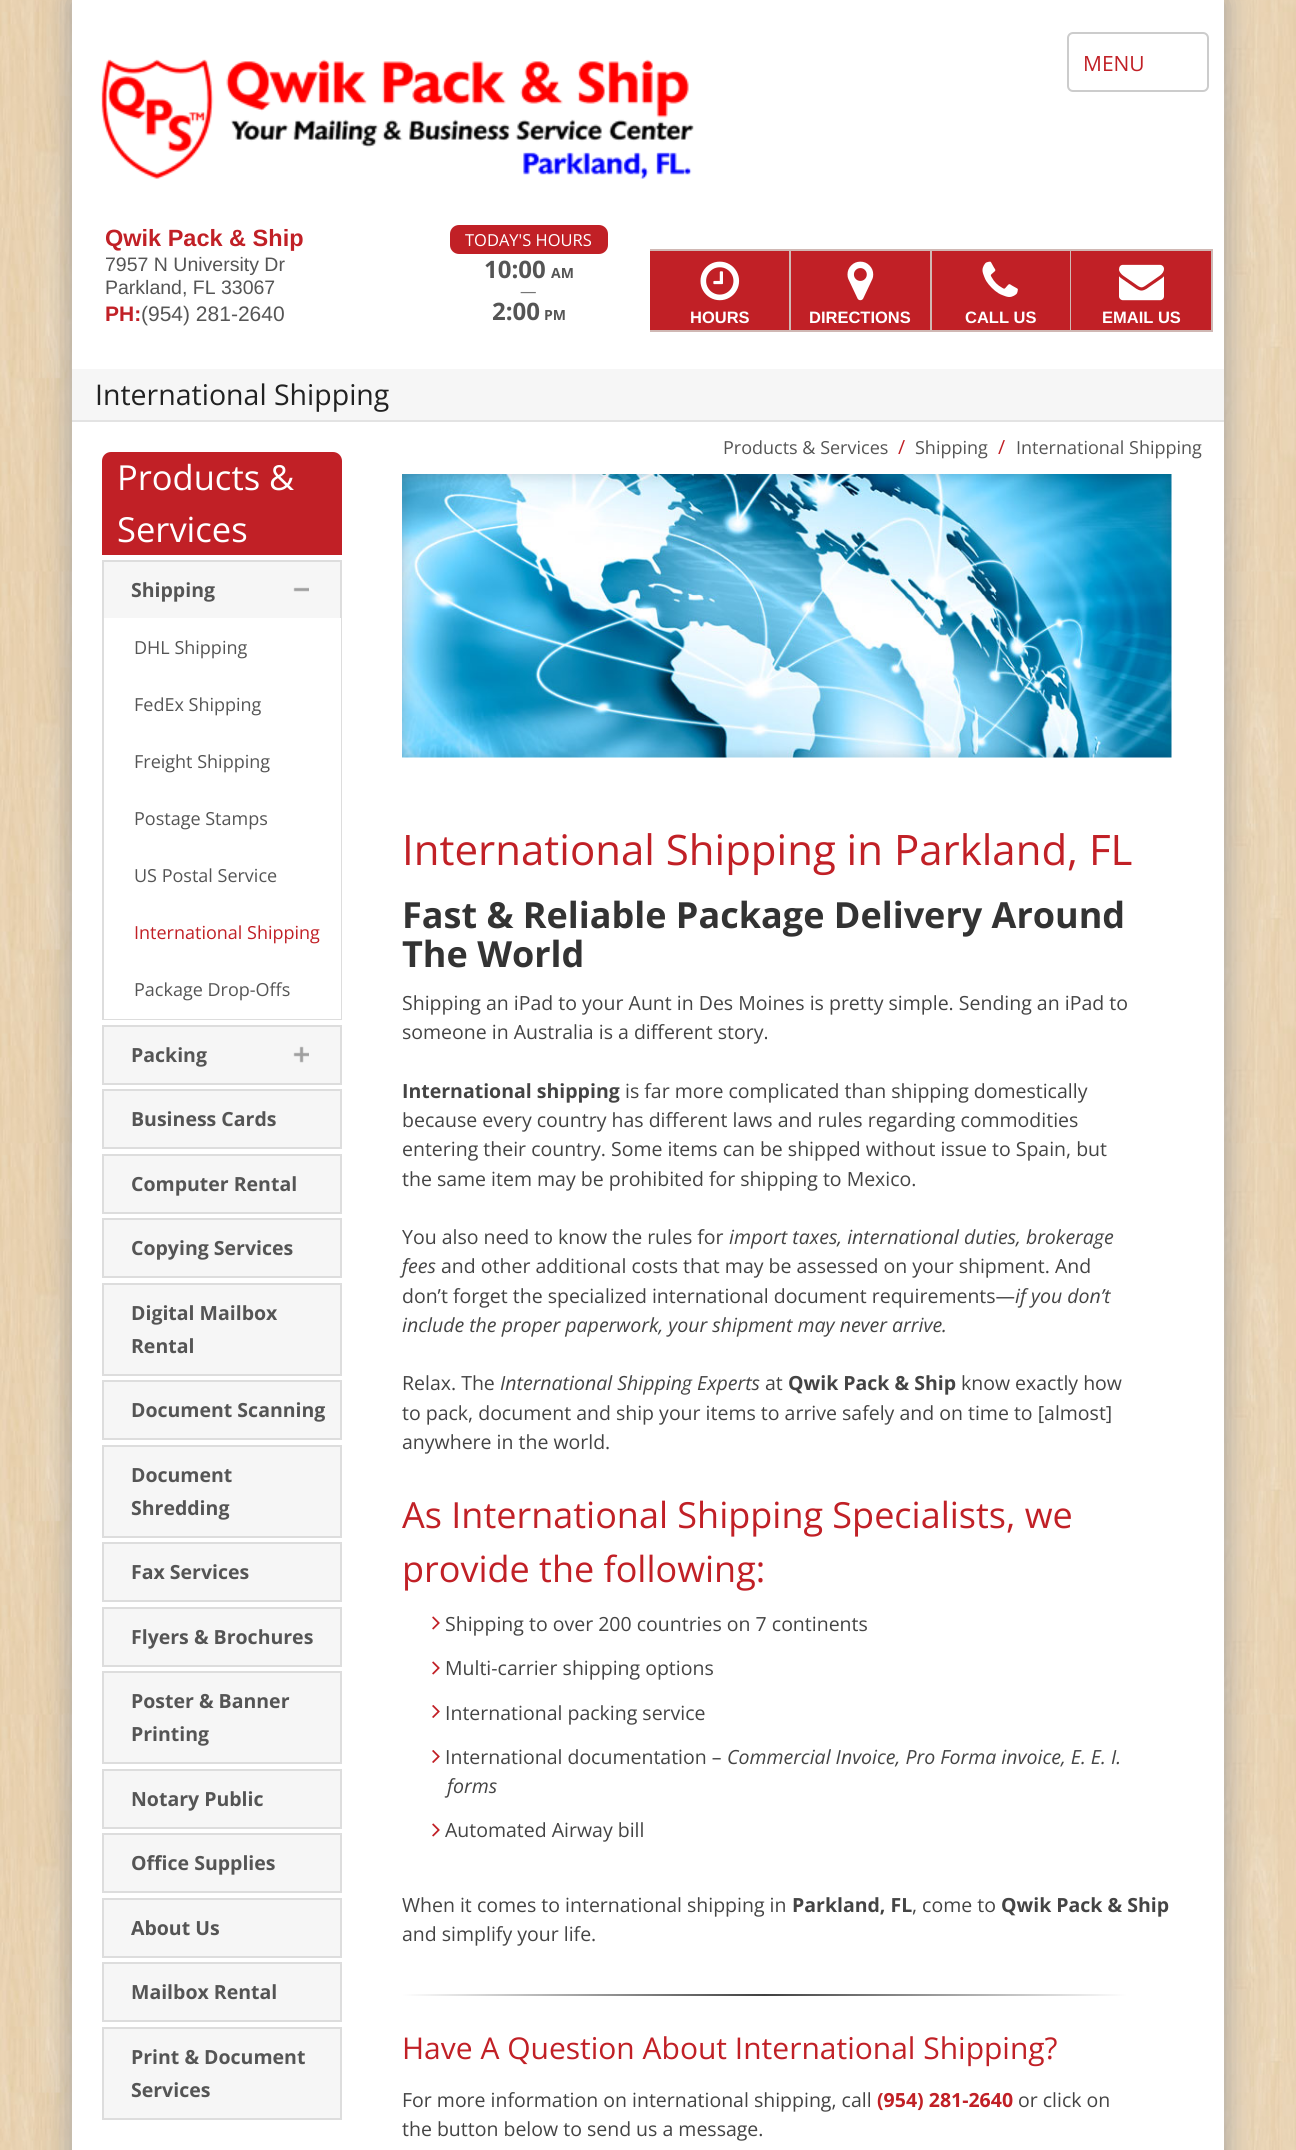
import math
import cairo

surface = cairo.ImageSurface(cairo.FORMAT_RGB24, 1296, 2150)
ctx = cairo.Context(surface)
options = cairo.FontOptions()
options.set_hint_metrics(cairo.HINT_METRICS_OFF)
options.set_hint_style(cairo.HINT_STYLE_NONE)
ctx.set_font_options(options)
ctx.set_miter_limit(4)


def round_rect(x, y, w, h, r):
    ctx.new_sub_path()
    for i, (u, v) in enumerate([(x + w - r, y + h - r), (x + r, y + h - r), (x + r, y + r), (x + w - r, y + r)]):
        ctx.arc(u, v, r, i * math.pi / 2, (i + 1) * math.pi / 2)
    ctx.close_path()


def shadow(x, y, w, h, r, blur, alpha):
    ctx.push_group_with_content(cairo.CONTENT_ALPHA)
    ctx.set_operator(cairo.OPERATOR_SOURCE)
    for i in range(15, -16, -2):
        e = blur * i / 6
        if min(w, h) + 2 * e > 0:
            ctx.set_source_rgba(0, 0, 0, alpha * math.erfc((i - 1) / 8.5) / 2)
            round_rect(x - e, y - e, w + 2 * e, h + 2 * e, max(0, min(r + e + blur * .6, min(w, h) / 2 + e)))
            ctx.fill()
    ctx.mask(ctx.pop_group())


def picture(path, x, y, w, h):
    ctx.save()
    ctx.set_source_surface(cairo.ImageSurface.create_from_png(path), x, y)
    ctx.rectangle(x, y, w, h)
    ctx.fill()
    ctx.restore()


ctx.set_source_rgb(1, 1, 1)
ctx.paint()
picture("img1.png", 0, 0, 1296, 2150)
ctx.set_source_rgb(0.639, 0.639, 0.639)
shadow(72, 0, 1152, 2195, 0, 15, 1)
ctx.set_source_rgb(1, 1, 1)
ctx.rectangle(72, 0, 1152, 2150)
ctx.fill()
picture("img2.png", 101, 59, 593, 120)
round_rect(1068, 33, 140, 58, 5)
ctx.set_source_rgb(0.8, 0.8, 0.8)
ctx.stroke()
ctx.select_font_face("Open Sans")
ctx.set_font_size(21)
ctx.set_source_rgb(0.757, 0.125, 0.149)
ctx.move_to(1083, 71)
ctx.show_text("MENU")
ctx.select_font_face("Liberation Sans", cairo.FONT_SLANT_NORMAL, cairo.FONT_WEIGHT_BOLD)
ctx.set_font_size(23.5)
ctx.move_to(105, 246)
ctx.show_text("Qwik Pack & Ship")
ctx.select_font_face("Liberation Sans")
ctx.set_font_size(19.5)
ctx.set_source_rgb(0.333, 0.333, 0.333)
ctx.move_to(105, 271)
ctx.show_text("7957 N University Dr")
ctx.move_to(105, 294)
ctx.show_text("Parkland, FL 33067")
ctx.select_font_face("Liberation Sans", cairo.FONT_SLANT_NORMAL, cairo.FONT_WEIGHT_BOLD)
ctx.set_font_size(21)
ctx.set_source_rgb(0.757, 0.125, 0.149)
ctx.move_to(105, 321)
ctx.show_text("PH:")
ctx.select_font_face("Liberation Sans")
ctx.set_source_rgb(0.333, 0.333, 0.333)
ctx.move_to(141, 321)
ctx.show_text("(954) 281-2640")
ctx.set_source_rgb(0.757, 0.125, 0.149)
round_rect(450, 225, 158, 29, 9)
ctx.fill()
ctx.select_font_face("Open Sans")
ctx.set_font_size(16.5)
ctx.set_source_rgb(1, 1, 1)
ctx.move_to(465, 246)
ctx.show_text("TODAY'S HOURS")
ctx.select_font_face("Open Sans", cairo.FONT_SLANT_NORMAL, cairo.FONT_WEIGHT_BOLD)
ctx.set_font_size(24)
ctx.set_source_rgb(0.333, 0.333, 0.333)
ctx.move_to(484, 278)
ctx.show_text("10:00")
ctx.set_font_size(14)
ctx.move_to(551, 278)
ctx.show_text("AM")
ctx.select_font_face("Open Sans")
ctx.set_font_size(16.5)
ctx.set_source_rgb(0.463, 0.463, 0.463)
ctx.move_to(520, 297)
ctx.show_text("—")
ctx.select_font_face("Open Sans", cairo.FONT_SLANT_NORMAL, cairo.FONT_WEIGHT_BOLD)
ctx.set_font_size(24)
ctx.set_source_rgb(0.333, 0.333, 0.333)
ctx.move_to(492, 320)
ctx.show_text("2:00")
ctx.set_font_size(14)
ctx.move_to(544, 320)
ctx.show_text("PM")
ctx.set_source_rgb(0.757, 0.125, 0.149)
ctx.rectangle(650, 251, 139, 79)
ctx.fill()
ctx.set_source_rgb(0.816, 0.722, 0.706)
ctx.rectangle(650, 249, 562, 2)
ctx.fill()
ctx.rectangle(789, 249, 2, 83)
ctx.fill()
ctx.rectangle(650, 330, 141, 2)
ctx.fill()
picture("img3.png", 700, 261, 40, 40)
ctx.select_font_face("Liberation Sans", cairo.FONT_SLANT_NORMAL, cairo.FONT_WEIGHT_BOLD)
ctx.set_font_size(16.5)
ctx.set_source_rgb(1, 1, 1)
ctx.move_to(690, 323)
ctx.show_text("HOURS")
ctx.set_source_rgb(0.757, 0.125, 0.149)
ctx.rectangle(791, 251, 139, 79)
ctx.fill()
ctx.set_source_rgb(0.816, 0.722, 0.706)
ctx.rectangle(930, 249, 2, 83)
ctx.fill()
ctx.rectangle(791, 330, 141, 2)
ctx.fill()
picture("img4.png", 847, 261, 27, 40)
ctx.set_source_rgb(1, 1, 1)
ctx.move_to(809, 323)
ctx.show_text("DIRECTIONS")
ctx.set_source_rgb(0.757, 0.125, 0.149)
ctx.rectangle(932, 251, 138, 79)
ctx.fill()
ctx.set_source_rgb(0.816, 0.722, 0.706)
ctx.rectangle(1070, 249, 1, 83)
ctx.fill()
ctx.rectangle(932, 330, 139, 2)
ctx.fill()
picture("img5.png", 982, 261, 36, 36)
ctx.set_source_rgb(1, 1, 1)
ctx.move_to(965, 323)
ctx.show_text("CALL US")
ctx.set_source_rgb(0.757, 0.125, 0.149)
ctx.rectangle(1071, 251, 140, 79)
ctx.fill()
ctx.set_source_rgb(0.816, 0.722, 0.706)
ctx.rectangle(1211, 249, 2, 83)
ctx.fill()
ctx.rectangle(1071, 330, 141, 2)
ctx.fill()
picture("img6.png", 1119, 264, 45, 37)
ctx.set_source_rgb(1, 1, 1)
ctx.move_to(1102, 323)
ctx.show_text("EMAIL US")
ctx.set_source_rgb(0.961, 0.961, 0.961)
ctx.rectangle(72, 369, 1152, 51)
ctx.fill()
ctx.set_source_rgb(0.89, 0.89, 0.89)
ctx.rectangle(72, 420, 1152, 2)
ctx.fill()
ctx.select_font_face("Open Sans")
ctx.set_font_size(28.5)
ctx.set_source_rgb(0.133, 0.133, 0.133)
ctx.move_to(95, 405)
ctx.show_text("International Shipping")
ctx.set_font_size(18)
ctx.set_source_rgb(0.333, 0.333, 0.333)
ctx.move_to(723, 454)
ctx.show_text("Products & Services")
ctx.set_font_size(19.5)
ctx.set_source_rgb(0.757, 0.125, 0.149)
ctx.move_to(898, 454)
ctx.show_text("/")
ctx.set_font_size(18)
ctx.set_source_rgb(0.333, 0.333, 0.333)
ctx.move_to(915, 454)
ctx.show_text("Shipping")
ctx.set_font_size(19.5)
ctx.set_source_rgb(0.757, 0.125, 0.149)
ctx.move_to(998, 454)
ctx.show_text("/")
ctx.set_font_size(18)
ctx.set_source_rgb(0.333, 0.333, 0.333)
ctx.move_to(1016, 454)
ctx.show_text("International Shipping")
ctx.set_source_rgb(0.757, 0.125, 0.149)
ctx.new_path()
ctx.move_to(111, 452)
ctx.line_to(333, 452)
ctx.curve_to(338, 452, 342, 456, 342, 461)
ctx.line_to(342, 555)
ctx.line_to(102, 555)
ctx.line_to(102, 461)
ctx.curve_to(102, 456, 106, 452, 111, 452)
ctx.close_path()
ctx.fill()
ctx.set_font_size(34.5)
ctx.set_source_rgb(1, 1, 1)
ctx.move_to(117, 490)
ctx.show_text("Products &")
ctx.move_to(117, 542)
ctx.show_text("Services")
ctx.set_source_rgb(0.961, 0.961, 0.961)
ctx.rectangle(104, 562, 236, 56)
ctx.fill()
ctx.rectangle(103, 561, 238, 458)
ctx.set_source_rgb(0.867, 0.867, 0.867)
ctx.stroke()
ctx.select_font_face("Open Sans", cairo.FONT_SLANT_NORMAL, cairo.FONT_WEIGHT_BOLD)
ctx.set_font_size(19.5)
ctx.set_source_rgb(0.333, 0.333, 0.333)
ctx.move_to(131, 597)
ctx.show_text("Shipping")
picture("img7.png", 293, 587, 16, 5)
ctx.set_source_rgb(1, 1, 1)
ctx.rectangle(340, 618, 1, 344)
ctx.fill()
ctx.select_font_face("Open Sans")
ctx.set_font_size(18)
ctx.set_source_rgb(0.333, 0.333, 0.333)
ctx.move_to(134, 654)
ctx.show_text("DHL Shipping")
ctx.move_to(134, 711)
ctx.show_text("FedEx Shipping")
ctx.move_to(134, 768)
ctx.show_text("Freight Shipping")
ctx.move_to(134, 825)
ctx.show_text("Postage Stamps")
ctx.move_to(134, 882)
ctx.show_text("US Postal Service")
ctx.set_source_rgb(0.757, 0.125, 0.149)
ctx.move_to(134, 939)
ctx.show_text("International Shipping")
ctx.set_source_rgb(1, 1, 1)
ctx.rectangle(104, 962, 237, 57)
ctx.fill()
ctx.set_source_rgb(0.333, 0.333, 0.333)
ctx.move_to(134, 996)
ctx.show_text("Package Drop-Offs")
ctx.set_source_rgb(0.961, 0.961, 0.961)
ctx.rectangle(103, 1026, 238, 58)
ctx.fill_preserve()
ctx.set_source_rgb(0.867, 0.867, 0.867)
ctx.stroke()
ctx.select_font_face("Open Sans", cairo.FONT_SLANT_NORMAL, cairo.FONT_WEIGHT_BOLD)
ctx.set_font_size(19.5)
ctx.set_source_rgb(0.333, 0.333, 0.333)
ctx.move_to(131, 1062)
ctx.show_text("Packing")
picture("img8.png", 293, 1046, 16, 17)
ctx.set_source_rgb(0.961, 0.961, 0.961)
ctx.rectangle(103, 1090, 238, 58)
ctx.fill_preserve()
ctx.set_source_rgb(0.867, 0.867, 0.867)
ctx.stroke()
ctx.set_source_rgb(0.333, 0.333, 0.333)
ctx.move_to(131, 1126)
ctx.show_text("Business Cards")
ctx.set_source_rgb(0.961, 0.961, 0.961)
ctx.rectangle(103, 1155, 238, 58)
ctx.fill_preserve()
ctx.set_source_rgb(0.867, 0.867, 0.867)
ctx.stroke()
ctx.set_source_rgb(0.333, 0.333, 0.333)
ctx.move_to(131, 1191)
ctx.show_text("Computer Rental")
ctx.set_source_rgb(0.961, 0.961, 0.961)
ctx.rectangle(103, 1219, 238, 58)
ctx.fill_preserve()
ctx.set_source_rgb(0.867, 0.867, 0.867)
ctx.stroke()
ctx.set_source_rgb(0.333, 0.333, 0.333)
ctx.move_to(131, 1255)
ctx.show_text("Copying Services")
ctx.set_source_rgb(0.961, 0.961, 0.961)
ctx.rectangle(103, 1284, 238, 91)
ctx.fill_preserve()
ctx.set_source_rgb(0.867, 0.867, 0.867)
ctx.stroke()
ctx.set_source_rgb(0.333, 0.333, 0.333)
ctx.move_to(131, 1320)
ctx.show_text("Digital Mailbox")
ctx.move_to(131, 1353)
ctx.show_text("Rental")
ctx.set_source_rgb(0.961, 0.961, 0.961)
ctx.rectangle(103, 1381, 238, 58)
ctx.fill_preserve()
ctx.set_source_rgb(0.867, 0.867, 0.867)
ctx.stroke()
ctx.set_source_rgb(0.333, 0.333, 0.333)
ctx.move_to(131, 1417)
ctx.show_text("Document Scanning")
ctx.set_source_rgb(0.961, 0.961, 0.961)
ctx.rectangle(103, 1446, 238, 91)
ctx.fill_preserve()
ctx.set_source_rgb(0.867, 0.867, 0.867)
ctx.stroke()
ctx.set_source_rgb(0.333, 0.333, 0.333)
ctx.move_to(131, 1482)
ctx.show_text("Document")
ctx.move_to(131, 1515)
ctx.show_text("Shredding")
ctx.set_source_rgb(0.961, 0.961, 0.961)
ctx.rectangle(103, 1543, 238, 58)
ctx.fill_preserve()
ctx.set_source_rgb(0.867, 0.867, 0.867)
ctx.stroke()
ctx.set_source_rgb(0.333, 0.333, 0.333)
ctx.move_to(131, 1579)
ctx.show_text("Fax Services")
ctx.set_source_rgb(0.961, 0.961, 0.961)
ctx.rectangle(103, 1608, 238, 58)
ctx.fill_preserve()
ctx.set_source_rgb(0.867, 0.867, 0.867)
ctx.stroke()
ctx.set_source_rgb(0.333, 0.333, 0.333)
ctx.move_to(131, 1644)
ctx.show_text("Flyers & Brochures")
ctx.set_source_rgb(0.961, 0.961, 0.961)
ctx.rectangle(103, 1672, 238, 91)
ctx.fill_preserve()
ctx.set_source_rgb(0.867, 0.867, 0.867)
ctx.stroke()
ctx.set_source_rgb(0.333, 0.333, 0.333)
ctx.move_to(131, 1708)
ctx.show_text("Poster & Banner")
ctx.move_to(131, 1741)
ctx.show_text("Printing")
ctx.set_source_rgb(0.961, 0.961, 0.961)
ctx.rectangle(103, 1770, 238, 58)
ctx.fill_preserve()
ctx.set_source_rgb(0.867, 0.867, 0.867)
ctx.stroke()
ctx.set_source_rgb(0.333, 0.333, 0.333)
ctx.move_to(131, 1806)
ctx.show_text("Notary Public")
ctx.set_source_rgb(0.961, 0.961, 0.961)
ctx.rectangle(103, 1834, 238, 58)
ctx.fill_preserve()
ctx.set_source_rgb(0.867, 0.867, 0.867)
ctx.stroke()
ctx.set_source_rgb(0.333, 0.333, 0.333)
ctx.move_to(131, 1870)
ctx.show_text("Office Supplies")
ctx.set_source_rgb(0.961, 0.961, 0.961)
ctx.rectangle(103, 1899, 238, 58)
ctx.fill_preserve()
ctx.set_source_rgb(0.867, 0.867, 0.867)
ctx.stroke()
ctx.set_source_rgb(0.333, 0.333, 0.333)
ctx.move_to(131, 1935)
ctx.show_text("About Us")
ctx.set_source_rgb(0.961, 0.961, 0.961)
ctx.rectangle(103, 1963, 238, 58)
ctx.fill_preserve()
ctx.set_source_rgb(0.867, 0.867, 0.867)
ctx.stroke()
ctx.set_source_rgb(0.333, 0.333, 0.333)
ctx.move_to(131, 1999)
ctx.show_text("Mailbox Rental")
ctx.set_source_rgb(0.961, 0.961, 0.961)
ctx.rectangle(103, 2028, 238, 91)
ctx.fill_preserve()
ctx.set_source_rgb(0.867, 0.867, 0.867)
ctx.stroke()
ctx.set_source_rgb(0.333, 0.333, 0.333)
ctx.move_to(131, 2064)
ctx.show_text("Print & Document")
ctx.move_to(131, 2097)
ctx.show_text("Services")
picture("img9.png", 402, 474, 770, 284)
ctx.select_font_face("Open Sans")
ctx.set_font_size(42)
ctx.set_source_rgb(0.757, 0.125, 0.149)
ctx.move_to(402, 865)
ctx.show_text("International Shipping in Parkland, FL")
ctx.select_font_face("Open Sans", cairo.FONT_SLANT_NORMAL, cairo.FONT_WEIGHT_BOLD)
ctx.set_font_size(36)
ctx.set_source_rgb(0.2, 0.2, 0.2)
ctx.move_to(402, 928)
ctx.show_text("Fast & Reliable Package Delivery Around")
ctx.move_to(402, 967)
ctx.show_text("The World")
ctx.select_font_face("Open Sans")
ctx.set_font_size(19.5)
ctx.set_source_rgb(0.267, 0.267, 0.267)
ctx.move_to(402, 1010)
ctx.show_text("Shipping an iPad to your Aunt in Des Moines is pretty simple. Sending an iPad to")
ctx.move_to(402, 1039)
ctx.show_text("someone in Australia is a different story.")
ctx.select_font_face("Open Sans", cairo.FONT_SLANT_NORMAL, cairo.FONT_WEIGHT_BOLD)
ctx.move_to(402, 1098)
ctx.show_text("International shipping")
ctx.select_font_face("Open Sans")
ctx.move_to(625, 1098)
ctx.show_text("is far more complicated than shipping domestically")
ctx.move_to(402, 1127)
ctx.show_text("because every country has different laws and rules regarding commodities")
ctx.move_to(402, 1156)
ctx.show_text("entering their country. Some items can be shipped without issue to Spain, but")
ctx.move_to(402, 1186)
ctx.show_text("the same item may be prohibited for shipping to Mexico.")
ctx.move_to(402, 1244)
ctx.show_text("You also need to know the rules for")
ctx.select_font_face("Open Sans", cairo.FONT_SLANT_ITALIC)
ctx.move_to(729, 1244)
ctx.show_text("import taxes, international duties, brokerage")
ctx.move_to(402, 1273)
ctx.show_text("fees")
ctx.select_font_face("Open Sans")
ctx.move_to(441, 1273)
ctx.show_text("and other additional costs that may be assessed on your shipment. And")
ctx.move_to(402, 1303)
ctx.show_text("don’t forget the specialized international document requirements—")
ctx.select_font_face("Open Sans", cairo.FONT_SLANT_ITALIC)
ctx.move_to(1015, 1303)
ctx.show_text("if you don’t")
ctx.move_to(402, 1332)
ctx.show_text("include the proper paperwork, your shipment may never arrive.")
ctx.select_font_face("Open Sans")
ctx.move_to(402, 1390)
ctx.show_text("Relax. The")
ctx.select_font_face("Open Sans", cairo.FONT_SLANT_ITALIC)
ctx.move_to(500, 1390)
ctx.show_text("International Shipping Experts")
ctx.select_font_face("Open Sans")
ctx.move_to(765, 1390)
ctx.show_text("at")
ctx.select_font_face("Open Sans", cairo.FONT_SLANT_NORMAL, cairo.FONT_WEIGHT_BOLD)
ctx.move_to(788, 1390)
ctx.show_text("Qwik Pack & Ship")
ctx.select_font_face("Open Sans")
ctx.move_to(961, 1390)
ctx.show_text("know exactly how")
ctx.move_to(402, 1420)
ctx.show_text("to pack, document and ship your items to arrive safely and on time to [almost]")
ctx.move_to(402, 1449)
ctx.show_text("anywhere in the world.")
ctx.set_font_size(36)
ctx.set_source_rgb(0.757, 0.125, 0.149)
ctx.move_to(402, 1528)
ctx.show_text("As International Shipping Specialists, we")
ctx.move_to(402, 1582)
ctx.show_text("provide the following:")
picture("img10.png", 432, 1616, 8, 14)
ctx.set_font_size(19.5)
ctx.set_source_rgb(0.267, 0.267, 0.267)
ctx.move_to(445, 1631)
ctx.show_text("Shipping to over 200 countries on 7 continents")
picture("img10.png", 432, 1661, 8, 14)
ctx.move_to(445, 1675)
ctx.show_text("Multi-carrier shipping options")
picture("img11.png", 432, 1705, 8, 13)
ctx.move_to(445, 1720)
ctx.show_text("International packing service")
picture("img11.png", 432, 1750, 8, 13)
ctx.move_to(445, 1764)
ctx.show_text("International documentation –")
ctx.select_font_face("Open Sans", cairo.FONT_SLANT_ITALIC)
ctx.move_to(727, 1764)
ctx.show_text("Commercial Invoice, Pro Forma invoice, E. E. I.")
ctx.move_to(447, 1793)
ctx.show_text("forms")
picture("img10.png", 432, 1823, 8, 14)
ctx.select_font_face("Open Sans")
ctx.move_to(445, 1837)
ctx.show_text("Automated Airway bill")
ctx.move_to(402, 1912)
ctx.show_text("When it comes to international shipping in")
ctx.select_font_face("Open Sans", cairo.FONT_SLANT_NORMAL, cairo.FONT_WEIGHT_BOLD)
ctx.move_to(792, 1912)
ctx.show_text("Parkland, FL")
ctx.select_font_face("Open Sans")
ctx.move_to(912, 1912)
ctx.show_text(", come to")
ctx.select_font_face("Open Sans", cairo.FONT_SLANT_NORMAL, cairo.FONT_WEIGHT_BOLD)
ctx.move_to(1001, 1912)
ctx.show_text("Qwik Pack & Ship")
ctx.select_font_face("Open Sans")
ctx.move_to(402, 1941)
ctx.show_text("and simplify your life.")
gradient = cairo.LinearGradient(402, 1994, 1127, 1994)
gradient.add_color_stop_rgba(0, 1, 1, 1, 1)
gradient.add_color_stop_rgba(0.5, 0.251, 0.251, 0.251, 1)
gradient.add_color_stop_rgba(1, 1, 1, 1, 1)
ctx.set_source(gradient)
ctx.rectangle(402, 1994, 725, 2)
ctx.fill()
ctx.set_font_size(30)
ctx.set_source_rgb(0.757, 0.125, 0.149)
ctx.move_to(402, 2059)
ctx.show_text("Have A Question About International Shipping?")
ctx.set_font_size(19.5)
ctx.set_source_rgb(0.267, 0.267, 0.267)
ctx.move_to(402, 2107)
ctx.show_text("For more information on international shipping, call")
ctx.select_font_face("Open Sans", cairo.FONT_SLANT_NORMAL, cairo.FONT_WEIGHT_BOLD)
ctx.set_source_rgb(0.757, 0.125, 0.149)
ctx.move_to(877, 2107)
ctx.show_text("(954) 281-2640")
ctx.select_font_face("Open Sans")
ctx.set_source_rgb(0.267, 0.267, 0.267)
ctx.move_to(1018, 2107)
ctx.show_text("or click on")
ctx.move_to(402, 2136)
ctx.show_text("the button below to send us a message.")
surface.write_to_png("page.png")
